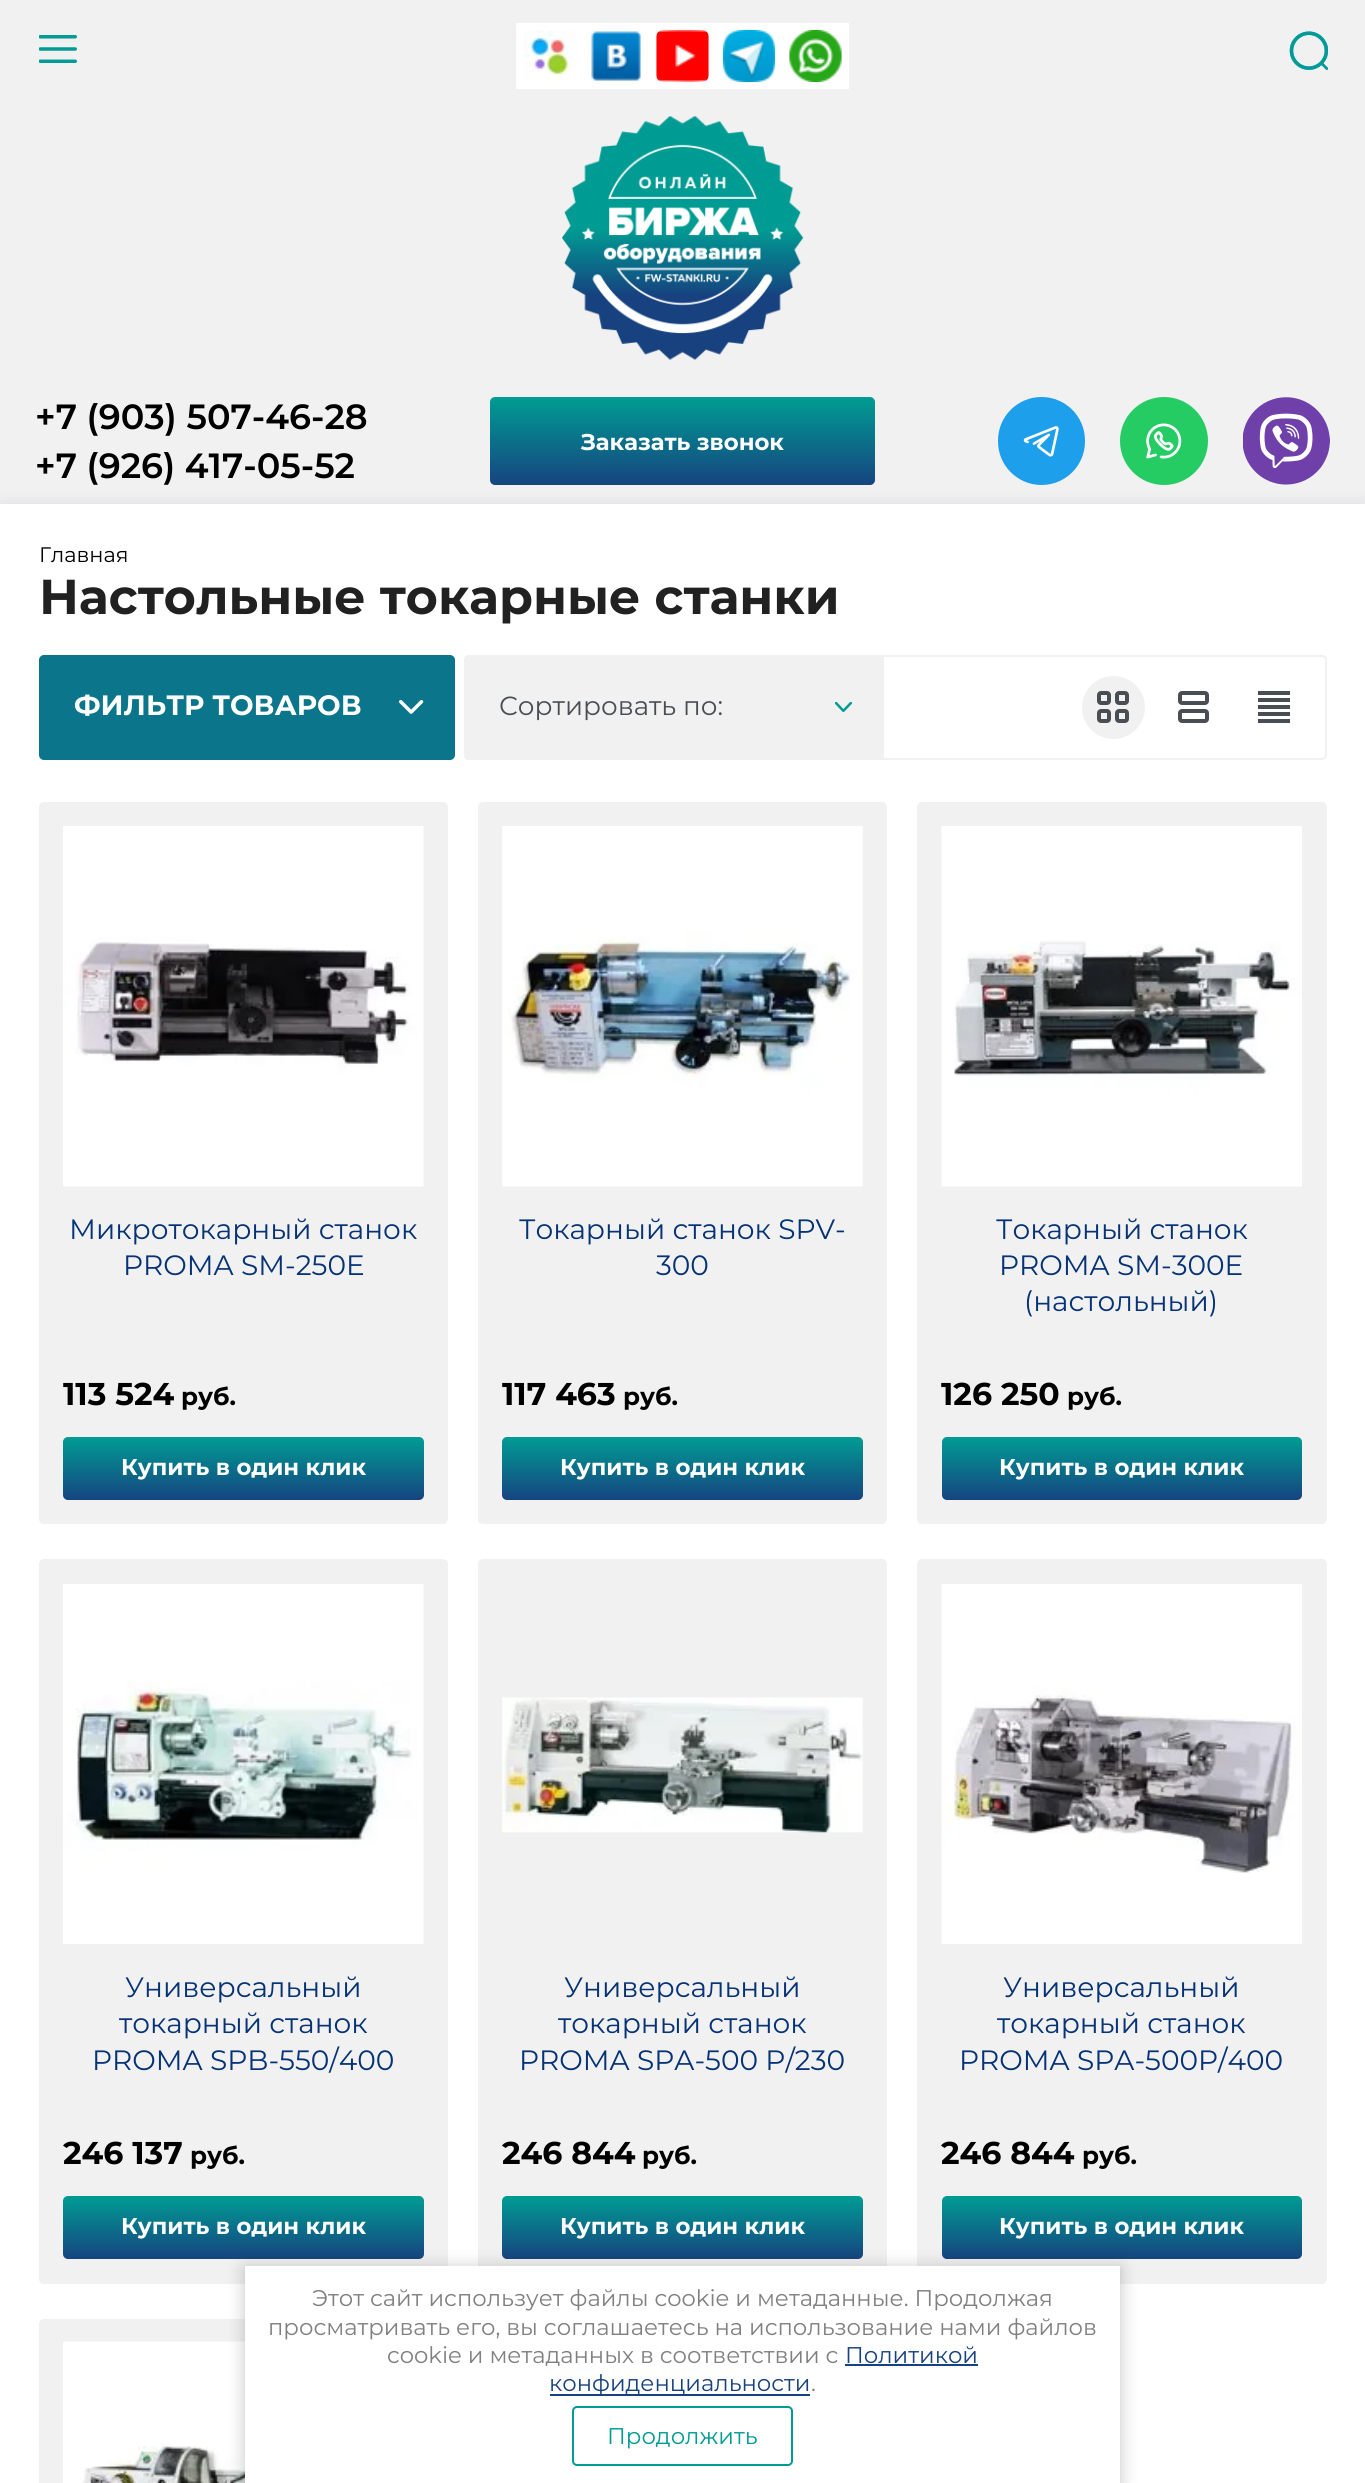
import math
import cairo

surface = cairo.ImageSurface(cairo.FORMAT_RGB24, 1365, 2483)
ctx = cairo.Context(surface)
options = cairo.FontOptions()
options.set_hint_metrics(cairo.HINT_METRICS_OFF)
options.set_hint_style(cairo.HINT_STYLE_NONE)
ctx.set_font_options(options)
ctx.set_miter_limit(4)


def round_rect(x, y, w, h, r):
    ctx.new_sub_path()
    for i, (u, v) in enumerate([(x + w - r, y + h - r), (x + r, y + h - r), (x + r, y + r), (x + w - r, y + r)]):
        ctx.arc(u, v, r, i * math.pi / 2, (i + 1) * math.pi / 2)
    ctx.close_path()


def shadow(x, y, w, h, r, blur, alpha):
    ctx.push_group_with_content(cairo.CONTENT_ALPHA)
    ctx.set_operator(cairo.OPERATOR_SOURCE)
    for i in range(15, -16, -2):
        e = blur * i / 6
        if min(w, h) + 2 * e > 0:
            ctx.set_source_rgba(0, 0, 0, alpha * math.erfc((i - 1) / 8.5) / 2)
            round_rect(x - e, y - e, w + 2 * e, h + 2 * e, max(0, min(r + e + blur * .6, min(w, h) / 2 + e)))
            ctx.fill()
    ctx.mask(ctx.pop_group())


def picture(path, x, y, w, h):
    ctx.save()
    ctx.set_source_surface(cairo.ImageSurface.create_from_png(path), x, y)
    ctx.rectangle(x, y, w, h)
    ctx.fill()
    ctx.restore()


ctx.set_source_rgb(0.945, 0.945, 0.945)
ctx.paint()
picture("img1.png", 39, 35, 38, 28)
ctx.set_source_rgb(1, 1, 1)
ctx.rectangle(516, 23, 333, 66)
ctx.fill()
picture("img2.png", 523, 30, 53, 52)
picture("img3.png", 591, 31, 50, 50)
picture("img4.png", 656, 29, 53, 54)
picture("img5.png", 722, 29, 54, 54)
picture("img6.png", 789, 29, 53, 54)
picture("img7.png", 1289, 31, 39, 39)
picture("img8.png", 562, 116, 242, 244)
ctx.select_font_face("Montserrat SemiBold")
ctx.set_font_size(35)
ctx.set_source_rgb(0, 0, 0)
ctx.move_to(35, 429)
ctx.show_text("+7 (903) 507-46-28")
ctx.move_to(35, 478)
ctx.show_text("+7 (926) 417-05-52")
gradient = cairo.LinearGradient(683, 397, 683, 485)
gradient.add_color_stop_rgba(0, 0, 0.612, 0.576, 1)
gradient.add_color_stop_rgba(1, 0.086, 0.267, 0.502, 1)
ctx.set_source(gradient)
round_rect(490, 397, 385, 88, 5)
ctx.fill()
ctx.select_font_face("Montserrat", cairo.FONT_SLANT_NORMAL, cairo.FONT_WEIGHT_BOLD)
ctx.set_font_size(22.75)
ctx.set_source_rgb(1, 1, 1)
ctx.move_to(581, 450)
ctx.show_text("Заказать звонок")
picture("img9.png", 998, 397, 87, 88)
picture("img10.png", 1120, 397, 88, 88)
picture("img11.png", 1243, 397, 87, 88)
ctx.set_source_rgb(0.157, 0.129, 0.408)
shadow(0, 508, 1365, 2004, 0, 9.5, 0.16)
ctx.set_source_rgb(1, 1, 1)
ctx.rectangle(0, 504, 1365, 1979)
ctx.fill()
ctx.select_font_face("Montserrat")
ctx.set_font_size(21)
ctx.set_source_rgb(0, 0, 0)
ctx.move_to(39, 562)
ctx.show_text("Главная")
ctx.select_font_face("Montserrat", cairo.FONT_SLANT_NORMAL, cairo.FONT_WEIGHT_BOLD)
ctx.set_font_size(49)
ctx.set_source_rgb(0.129, 0.129, 0.129)
ctx.move_to(39, 614)
ctx.show_text("Настольные токарные станки")
ctx.set_source_rgb(0.043, 0.459, 0.545)
round_rect(39, 655, 416, 105, 5)
ctx.fill()
ctx.set_font_size(28)
ctx.set_source_rgb(1, 1, 1)
ctx.move_to(74, 715)
ctx.show_text("ФИЛЬТР ТОВАРОВ")
picture("img12.png", 399, 700, 25, 14)
round_rect(465, 656, 861, 103, 4)
ctx.set_source_rgb(0.945, 0.945, 0.945)
ctx.stroke()
ctx.new_path()
ctx.move_to(469, 655)
ctx.line_to(884, 655)
ctx.line_to(884, 760)
ctx.line_to(469, 760)
ctx.curve_to(466, 760, 464, 758, 464, 755)
ctx.line_to(464, 660)
ctx.curve_to(464, 657, 466, 655, 469, 655)
ctx.close_path()
ctx.fill()
ctx.select_font_face("Montserrat")
ctx.set_font_size(26.25)
ctx.set_source_rgb(0.286, 0.306, 0.333)
ctx.move_to(499, 715)
ctx.show_text("Сортировать по:")
picture("img13.png", 835, 702, 17, 10)
ctx.set_source_rgb(0.945, 0.945, 0.945)
ctx.arc(1113.5, 707.5, 31.5, 0, 2 * math.pi)
ctx.fill()
round_rect(1099, 693, 10, 10, 2)
ctx.set_source_rgb(0.286, 0.306, 0.333)
ctx.set_line_width(4)
ctx.stroke()
round_rect(1117, 693, 10, 10, 2)
ctx.stroke()
round_rect(1099, 711, 10, 10, 2)
ctx.stroke()
round_rect(1117, 711, 10, 10, 2)
ctx.stroke()
round_rect(1180, 693, 27, 10, 2)
ctx.stroke()
round_rect(1180, 711, 27, 10, 2)
ctx.stroke()
ctx.rectangle(1258, 705, 32, 4)
ctx.fill()
ctx.rectangle(1258, 691, 32, 4)
ctx.fill()
ctx.rectangle(1258, 698, 32, 4)
ctx.fill()
ctx.rectangle(1258, 712, 32, 4)
ctx.fill()
ctx.rectangle(1258, 719, 32, 4)
ctx.fill()
ctx.set_source_rgb(0.945, 0.945, 0.945)
round_rect(39, 802, 409, 722, 5)
ctx.fill()
picture("img14.png", 63, 826, 361, 361)
ctx.set_font_size(28)
ctx.set_source_rgb(0.024, 0.196, 0.463)
ctx.move_to(69, 1239)
ctx.show_text("Микротокарный станок")
ctx.move_to(123, 1275)
ctx.show_text("PROMA SM-250E")
ctx.select_font_face("Montserrat", cairo.FONT_SLANT_NORMAL, cairo.FONT_WEIGHT_BOLD)
ctx.set_font_size(31.5)
ctx.set_source_rgb(0, 0, 0)
ctx.move_to(63, 1405)
ctx.show_text("113 524")
ctx.set_font_size(24.5)
ctx.move_to(181, 1405)
ctx.show_text("руб.")
gradient = cairo.LinearGradient(243, 1437, 243, 1500)
gradient.add_color_stop_rgba(0, 0, 0.612, 0.576, 1)
gradient.add_color_stop_rgba(1, 0.086, 0.267, 0.502, 1)
ctx.set_source(gradient)
round_rect(63, 1437, 361, 63, 5)
ctx.fill()
ctx.set_font_size(22.75)
ctx.set_source_rgb(1, 1, 1)
ctx.move_to(121, 1475)
ctx.show_text("Купить в один клик")
ctx.set_source_rgb(0.945, 0.945, 0.945)
round_rect(478, 802, 409, 722, 5)
ctx.fill()
picture("img15.png", 502, 826, 361, 361)
ctx.select_font_face("Montserrat")
ctx.set_font_size(28)
ctx.set_source_rgb(0.024, 0.196, 0.463)
ctx.move_to(519, 1239)
ctx.show_text("Токарный станок SPV-")
ctx.move_to(656, 1275)
ctx.show_text("300")
ctx.select_font_face("Montserrat", cairo.FONT_SLANT_NORMAL, cairo.FONT_WEIGHT_BOLD)
ctx.set_font_size(31.5)
ctx.set_source_rgb(0, 0, 0)
ctx.move_to(502, 1405)
ctx.show_text("117 463")
ctx.set_font_size(24.5)
ctx.move_to(623, 1405)
ctx.show_text("руб.")
gradient = cairo.LinearGradient(683, 1437, 683, 1500)
gradient.add_color_stop_rgba(0, 0, 0.612, 0.576, 1)
gradient.add_color_stop_rgba(1, 0.086, 0.267, 0.502, 1)
ctx.set_source(gradient)
round_rect(502, 1437, 361, 63, 5)
ctx.fill()
ctx.set_font_size(22.75)
ctx.set_source_rgb(1, 1, 1)
ctx.move_to(560, 1475)
ctx.show_text("Купить в один клик")
ctx.set_source_rgb(0.945, 0.945, 0.945)
round_rect(917, 802, 410, 722, 5)
ctx.fill()
picture("img16.png", 941, 826, 361, 361)
ctx.select_font_face("Montserrat")
ctx.set_font_size(28)
ctx.set_source_rgb(0.024, 0.196, 0.463)
ctx.move_to(996, 1239)
ctx.show_text("Токарный станок")
ctx.move_to(999, 1275)
ctx.show_text("PROMA SM-300E")
ctx.move_to(1024, 1311)
ctx.show_text("(настольный)")
ctx.select_font_face("Montserrat", cairo.FONT_SLANT_NORMAL, cairo.FONT_WEIGHT_BOLD)
ctx.set_font_size(31.5)
ctx.set_source_rgb(0, 0, 0)
ctx.move_to(941, 1405)
ctx.show_text("126 250")
ctx.set_font_size(24.5)
ctx.move_to(1067, 1405)
ctx.show_text("руб.")
gradient = cairo.LinearGradient(1122, 1437, 1122, 1500)
gradient.add_color_stop_rgba(0, 0, 0.612, 0.576, 1)
gradient.add_color_stop_rgba(1, 0.086, 0.267, 0.502, 1)
ctx.set_source(gradient)
round_rect(942, 1437, 360, 63, 5)
ctx.fill()
ctx.set_font_size(22.75)
ctx.set_source_rgb(1, 1, 1)
ctx.move_to(999, 1475)
ctx.show_text("Купить в один клик")
ctx.set_source_rgb(0.945, 0.945, 0.945)
round_rect(39, 1559, 409, 725, 5)
ctx.fill()
picture("img17.png", 63, 1584, 361, 360)
ctx.select_font_face("Montserrat")
ctx.set_font_size(28)
ctx.set_source_rgb(0.024, 0.196, 0.463)
ctx.move_to(125, 1997)
ctx.show_text("Универсальный")
ctx.move_to(119, 2033)
ctx.show_text("токарный станок")
ctx.move_to(92, 2070)
ctx.show_text("PROMA SPB-550/400")
ctx.select_font_face("Montserrat", cairo.FONT_SLANT_NORMAL, cairo.FONT_WEIGHT_BOLD)
ctx.set_font_size(31.5)
ctx.set_source_rgb(0, 0, 0)
ctx.move_to(63, 2164)
ctx.show_text("246 137")
ctx.set_font_size(24.5)
ctx.move_to(190, 2164)
ctx.show_text("руб.")
gradient = cairo.LinearGradient(243, 2196, 243, 2259)
gradient.add_color_stop_rgba(0, 0, 0.612, 0.576, 1)
gradient.add_color_stop_rgba(1, 0.086, 0.267, 0.502, 1)
ctx.set_source(gradient)
round_rect(63, 2196, 361, 63, 5)
ctx.fill()
ctx.set_font_size(22.75)
ctx.set_source_rgb(1, 1, 1)
ctx.move_to(121, 2234)
ctx.show_text("Купить в один клик")
ctx.set_source_rgb(0.945, 0.945, 0.945)
round_rect(478, 1559, 409, 725, 5)
ctx.fill()
picture("img18.png", 502, 1697, 361, 136)
ctx.select_font_face("Montserrat")
ctx.set_font_size(28)
ctx.set_source_rgb(0.024, 0.196, 0.463)
ctx.move_to(564, 1997)
ctx.show_text("Универсальный")
ctx.move_to(558, 2033)
ctx.show_text("токарный станок")
ctx.move_to(519, 2070)
ctx.show_text("PROMA SPA-500 P/230")
ctx.select_font_face("Montserrat", cairo.FONT_SLANT_NORMAL, cairo.FONT_WEIGHT_BOLD)
ctx.set_font_size(31.5)
ctx.set_source_rgb(0, 0, 0)
ctx.move_to(502, 2164)
ctx.show_text("246 844")
ctx.set_font_size(24.5)
ctx.move_to(642, 2164)
ctx.show_text("руб.")
gradient = cairo.LinearGradient(683, 2196, 683, 2259)
gradient.add_color_stop_rgba(0, 0, 0.612, 0.576, 1)
gradient.add_color_stop_rgba(1, 0.086, 0.267, 0.502, 1)
ctx.set_source(gradient)
round_rect(502, 2196, 361, 63, 5)
ctx.fill()
ctx.set_font_size(22.75)
ctx.set_source_rgb(1, 1, 1)
ctx.move_to(560, 2234)
ctx.show_text("Купить в один клик")
ctx.set_source_rgb(0.945, 0.945, 0.945)
round_rect(917, 1559, 410, 725, 5)
ctx.fill()
picture("img19.png", 941, 1584, 361, 360)
ctx.select_font_face("Montserrat")
ctx.set_font_size(28)
ctx.set_source_rgb(0.024, 0.196, 0.463)
ctx.move_to(1003, 1997)
ctx.show_text("Универсальный")
ctx.move_to(997, 2033)
ctx.show_text("токарный станок")
ctx.move_to(959, 2070)
ctx.show_text("PROMA SPA-500P/400")
ctx.select_font_face("Montserrat", cairo.FONT_SLANT_NORMAL, cairo.FONT_WEIGHT_BOLD)
ctx.set_font_size(31.5)
ctx.set_source_rgb(0, 0, 0)
ctx.move_to(941, 2164)
ctx.show_text("246 844")
ctx.set_font_size(24.5)
ctx.move_to(1082, 2164)
ctx.show_text("руб.")
gradient = cairo.LinearGradient(1122, 2196, 1122, 2259)
gradient.add_color_stop_rgba(0, 0, 0.612, 0.576, 1)
gradient.add_color_stop_rgba(1, 0.086, 0.267, 0.502, 1)
ctx.set_source(gradient)
round_rect(942, 2196, 360, 63, 5)
ctx.fill()
ctx.set_font_size(22.75)
ctx.set_source_rgb(1, 1, 1)
ctx.move_to(999, 2234)
ctx.show_text("Купить в один клик")
ctx.set_source_rgb(0.945, 0.945, 0.945)
round_rect(39, 2319, 409, 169, 5)
ctx.fill()
picture("img20.png", 63, 2341, 182, 142)
ctx.set_source_rgb(0, 0, 0)
shadow(245, 2268, 875, 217, 0, 9, 0.23)
ctx.set_source_rgb(1, 1, 1)
ctx.rectangle(245, 2266, 875, 217)
ctx.fill()
ctx.select_font_face("Montserrat")
ctx.set_source_rgb(0.502, 0.502, 0.502)
ctx.move_to(312, 2306)
ctx.show_text("Этот сайт использует файлы cookie и метаданные. Продолжая")
ctx.move_to(268, 2335)
ctx.show_text("просматривать его, вы соглашаетесь на использование нами файлов")
ctx.move_to(387, 2363)
ctx.show_text("cookie и метаданных в соответствии с")
ctx.set_source_rgb(0.09, 0.255, 0.498)
ctx.move_to(845, 2363)
ctx.show_text("Политикой")
ctx.rectangle(845, 2364, 133, 2)
ctx.fill()
ctx.rectangle(550, 2394, 260, 2)
ctx.fill()
ctx.move_to(549, 2391)
ctx.show_text("конфиденциальности")
ctx.set_source_rgb(0.502, 0.502, 0.502)
ctx.move_to(811, 2391)
ctx.show_text(".")
round_rect(573, 2407, 219, 58, 4)
ctx.set_source_rgb(0, 0.612, 0.576)
ctx.set_line_width(2)
ctx.stroke()
ctx.move_to(607, 2444)
ctx.show_text("Продолжить")
surface.write_to_png("page.png")
